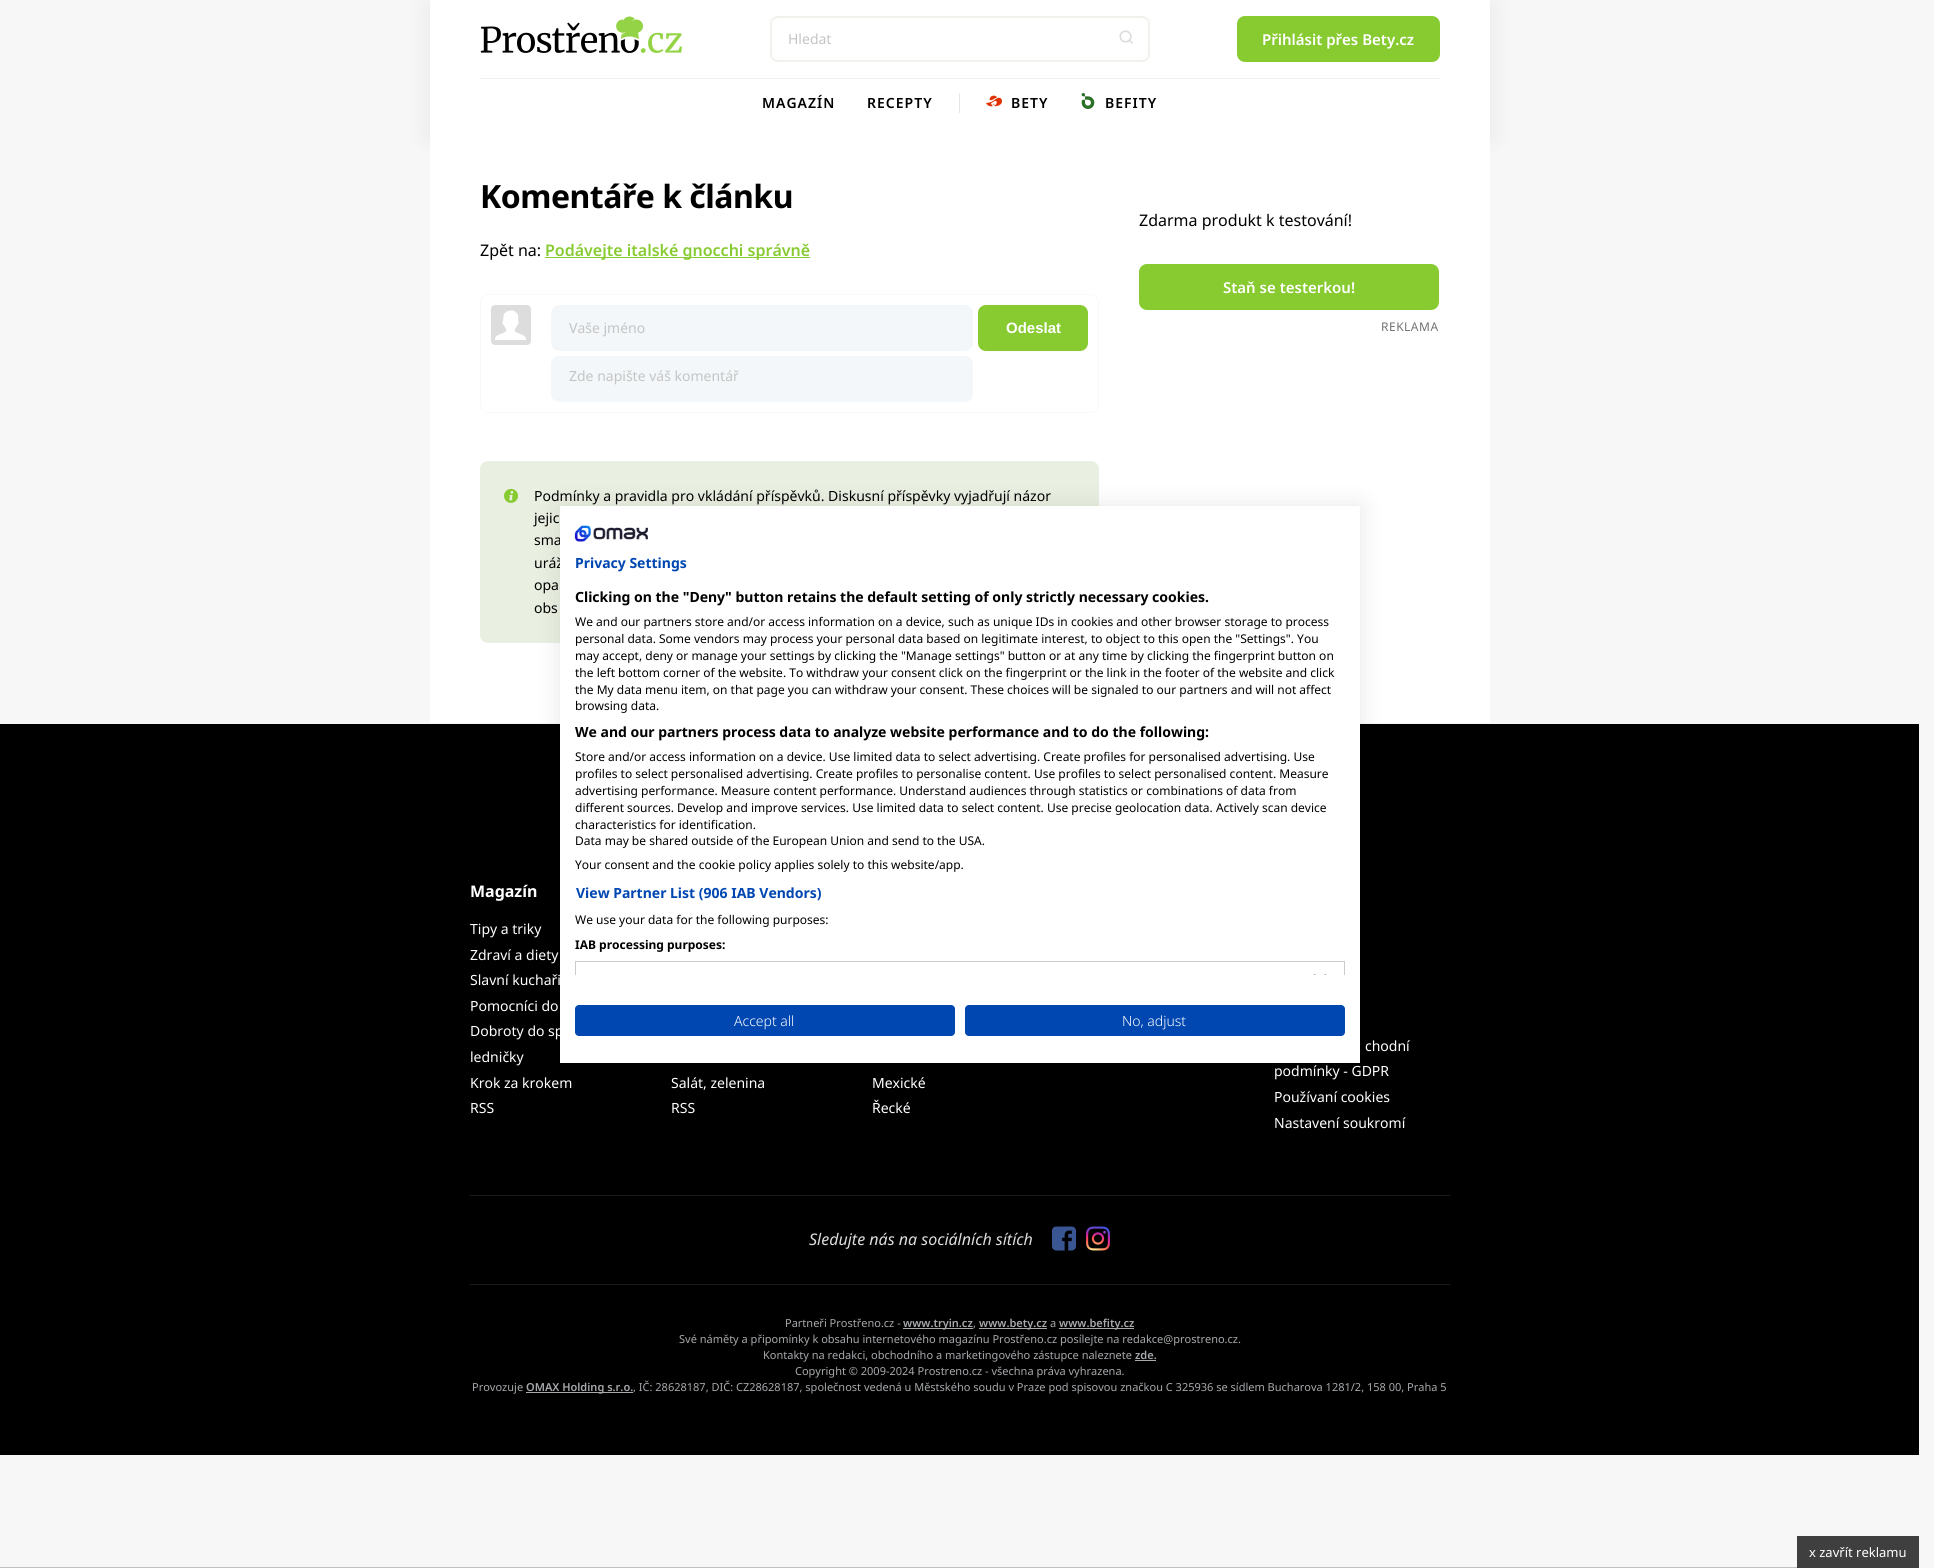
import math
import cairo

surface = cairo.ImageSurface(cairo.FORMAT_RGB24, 1934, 1568)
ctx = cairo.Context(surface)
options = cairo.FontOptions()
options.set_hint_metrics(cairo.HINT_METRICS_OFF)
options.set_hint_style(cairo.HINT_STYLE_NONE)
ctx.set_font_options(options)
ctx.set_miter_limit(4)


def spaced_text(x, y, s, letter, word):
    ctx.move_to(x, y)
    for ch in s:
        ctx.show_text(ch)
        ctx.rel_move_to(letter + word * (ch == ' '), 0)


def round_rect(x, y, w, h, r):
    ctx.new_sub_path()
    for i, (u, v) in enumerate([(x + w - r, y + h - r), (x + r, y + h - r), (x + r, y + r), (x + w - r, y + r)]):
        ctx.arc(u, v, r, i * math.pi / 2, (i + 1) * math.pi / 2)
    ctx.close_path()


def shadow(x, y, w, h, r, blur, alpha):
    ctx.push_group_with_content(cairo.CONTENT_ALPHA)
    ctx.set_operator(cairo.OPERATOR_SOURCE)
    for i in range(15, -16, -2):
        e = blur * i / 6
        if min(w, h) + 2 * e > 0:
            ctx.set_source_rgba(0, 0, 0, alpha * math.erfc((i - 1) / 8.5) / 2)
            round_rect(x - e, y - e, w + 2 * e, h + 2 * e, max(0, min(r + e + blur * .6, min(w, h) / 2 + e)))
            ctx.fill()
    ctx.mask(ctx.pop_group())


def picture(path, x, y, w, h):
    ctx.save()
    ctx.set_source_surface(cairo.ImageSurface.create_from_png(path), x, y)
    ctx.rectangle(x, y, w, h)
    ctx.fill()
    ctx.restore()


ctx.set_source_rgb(0.965, 0.965, 0.965)
ctx.paint()
ctx.set_source_rgb(0.584, 0.616, 0.647)
shadow(430, 8, 1060, 128, 0, 12, 0.2)
ctx.set_source_rgb(1, 1, 1)
ctx.rectangle(430, 0, 1060, 128)
ctx.fill()
picture("img1.png", 480, 16, 202, 37)
round_rect(771, 17, 378, 44, 7)
ctx.set_source_rgb(0.937, 0.953, 0.925)
ctx.stroke()
ctx.select_font_face("Noto Sans")
ctx.set_font_size(14)
ctx.set_source_rgb(0.769, 0.769, 0.769)
ctx.move_to(788, 44)
ctx.show_text("Hledat")
picture("img2.png", 1119, 30, 14, 14)
ctx.set_source_rgb(0.529, 0.796, 0.192)
round_rect(1237, 16, 203, 46, 8)
ctx.fill()
ctx.select_font_face("Noto Sans SemiBold")
ctx.set_font_size(15)
ctx.set_source_rgb(1, 1, 1)
ctx.move_to(1262, 45)
ctx.show_text("Přihlásit přes Bety.cz")
ctx.set_source_rgb(0.949, 0.949, 0.949)
ctx.rectangle(480, 78, 960, 1)
ctx.fill()
ctx.set_font_size(14)
ctx.set_source_rgb(0, 0, 0)
spaced_text(762, 108, "MAGAZÍN", 1, 0)
spaced_text(867, 108, "RECEPTY", 1, 0)
ctx.set_source_rgb(0.902, 0.902, 0.902)
ctx.rectangle(959, 93, 1, 20)
ctx.fill()
picture("img3.png", 986, 95, 16, 12)
ctx.set_source_rgb(0, 0, 0)
spaced_text(1011, 108, "BETY", 1, 0)
picture("img4.png", 1081, 93, 14, 16)
spaced_text(1105, 108, "BEFITY", 1, 0)
ctx.set_source_rgb(1, 1, 1)
ctx.rectangle(430, 128, 1060, 595)
ctx.fill()
ctx.select_font_face("Noto Sans", cairo.FONT_SLANT_NORMAL, cairo.FONT_WEIGHT_BOLD)
ctx.set_font_size(32)
ctx.set_source_rgb(0, 0, 0)
spaced_text(480, 208, "Komentáře k článku", -0.5, 0)
ctx.select_font_face("Noto Sans")
ctx.set_font_size(16)
ctx.move_to(480, 256)
ctx.show_text("Zpět na:")
ctx.set_source_rgb(0.529, 0.796, 0.192)
ctx.rectangle(545, 257, 265, 1)
ctx.fill()
ctx.select_font_face("Noto Sans SemiBold")
ctx.move_to(545, 256)
ctx.show_text("Podávejte italské gnocchi správně")
round_rect(480.5, 294.5, 618, 118, 7.5)
ctx.set_source_rgb(0.973, 0.973, 0.973)
ctx.set_line_width(1)
ctx.stroke()
picture("img5.png", 491, 305, 40, 40)
ctx.set_source_rgb(0.957, 0.965, 0.973)
round_rect(552, 306, 420, 44, 7)
ctx.fill_preserve()
ctx.set_line_width(2)
ctx.stroke()
ctx.select_font_face("Noto Sans")
ctx.set_font_size(14)
ctx.set_source_rgb(0.769, 0.769, 0.769)
ctx.move_to(569, 333)
ctx.show_text("Vaše jméno")
ctx.set_source_rgb(0.529, 0.796, 0.192)
round_rect(978, 305, 110, 46, 8)
ctx.fill()
ctx.select_font_face("Liberation Sans", cairo.FONT_SLANT_NORMAL, cairo.FONT_WEIGHT_BOLD)
ctx.set_font_size(15)
ctx.set_source_rgb(1, 1, 1)
ctx.move_to(1006, 333)
ctx.show_text("Odeslat")
ctx.set_source_rgb(0.957, 0.965, 0.973)
round_rect(552, 357, 420, 44, 7)
ctx.fill_preserve()
ctx.stroke()
ctx.select_font_face("Noto Sans")
ctx.set_font_size(14)
ctx.set_source_rgb(0.769, 0.769, 0.769)
ctx.move_to(569, 381)
ctx.show_text("Zde napište váš komentář")
ctx.set_source_rgb(0.914, 0.937, 0.882)
round_rect(480, 461, 619, 182, 8)
ctx.fill()
picture("img6.png", 504, 488, 14, 15)
ctx.set_source_rgb(0, 0, 0)
ctx.move_to(534, 501)
ctx.show_text("Podmínky a pravidla pro vkládání příspěvků. Diskusní příspěvky vyjadřují názor")
ctx.move_to(534, 523)
ctx.show_text("jejic")
ctx.move_to(534, 545)
ctx.show_text("sma")
ctx.move_to(534, 568)
ctx.show_text("uráž")
ctx.move_to(534, 590)
ctx.show_text("opa")
ctx.move_to(534, 613)
ctx.show_text("obs")
ctx.set_font_size(16)
ctx.move_to(1139, 226)
ctx.show_text("Zdarma produkt k testování!")
ctx.set_source_rgb(0.529, 0.796, 0.192)
round_rect(1139, 264, 300, 46, 8)
ctx.fill()
ctx.select_font_face("Noto Sans SemiBold")
ctx.set_font_size(15)
ctx.set_source_rgb(1, 1, 1)
ctx.move_to(1223, 293)
ctx.show_text("Staň se testerkou!")
ctx.select_font_face("Noto Sans")
ctx.set_font_size(12)
ctx.set_source_rgb(0.447, 0.447, 0.447)
spaced_text(1381, 331, "REKLAMA", 0.5, 0)
ctx.set_source_rgb(0, 0, 0)
ctx.rectangle(0, 724, 1919, 731)
ctx.fill()
ctx.set_source_rgb(0, 0, 0)
shadow(560, 506, 800, 557, 0, 12, 0.1)
ctx.set_source_rgb(1, 1, 1)
ctx.rectangle(560, 506, 800, 557)
ctx.fill()
picture("img7.png", 574, 525, 74, 17)
ctx.select_font_face("Noto Sans", cairo.FONT_SLANT_NORMAL, cairo.FONT_WEIGHT_BOLD)
ctx.set_font_size(14)
ctx.set_source_rgb(0, 0.278, 0.698)
ctx.move_to(575, 568)
ctx.show_text("Privacy Settings")
ctx.set_source_rgb(0, 0, 0)
ctx.move_to(575, 602)
ctx.show_text("Clicking on the \"Deny\" button retains the default setting of only strictly necessary cookies.")
ctx.select_font_face("Noto Sans")
ctx.set_font_size(12)
ctx.move_to(575, 626)
ctx.show_text("We and our partners store and/or access information on a device, such as unique IDs in cookies and other browser storage to process")
ctx.move_to(575, 643)
ctx.show_text("personal data. Some vendors may process your personal data based on legitimate interest, to object to this open the \"Settings\". You")
ctx.move_to(575, 660)
ctx.show_text("may accept, deny or manage your settings by clicking the \"Manage settings\" button or at any time by clicking the fingerprint button on")
ctx.move_to(575, 677)
ctx.show_text("the left bottom corner of the website. To withdraw your consent click on the fingerprint or the link in the footer of the website and click")
ctx.move_to(575, 694)
ctx.show_text("the My data menu item, on that page you can withdraw your consent. These choices will be signaled to our partners and will not affect")
ctx.move_to(575, 710)
ctx.show_text("browsing data.")
ctx.select_font_face("Noto Sans", cairo.FONT_SLANT_NORMAL, cairo.FONT_WEIGHT_BOLD)
ctx.set_font_size(14)
ctx.move_to(575, 737)
ctx.show_text("We and our partners process data to analyze website performance and to do the following:")
ctx.select_font_face("Noto Sans")
ctx.set_font_size(12)
ctx.move_to(575, 761)
ctx.show_text("Store and/or access information on a device. Use limited data to select advertising. Create profiles for personalised advertising. Use")
ctx.move_to(575, 778)
ctx.show_text("profiles to select personalised advertising. Create profiles to personalise content. Use profiles to select personalised content. Measure")
ctx.move_to(575, 795)
ctx.show_text("advertising performance. Measure content performance. Understand audiences through statistics or combinations of data from")
ctx.move_to(575, 812)
ctx.show_text("different sources. Develop and improve services. Use limited data to select content. Use precise geolocation data. Actively scan device")
ctx.move_to(575, 829)
ctx.show_text("characteristics for identification.")
ctx.move_to(575, 845)
ctx.show_text("Data may be shared outside of the European Union and send to the USA.")
ctx.move_to(575, 869)
ctx.show_text("Your consent and the cookie policy applies solely to this website/app.")
ctx.select_font_face("Noto Sans", cairo.FONT_SLANT_NORMAL, cairo.FONT_WEIGHT_BOLD)
ctx.set_font_size(14)
ctx.set_source_rgb(0, 0.278, 0.698)
ctx.move_to(576, 898)
ctx.show_text("View Partner List (906 IAB Vendors)")
ctx.select_font_face("Noto Sans")
ctx.set_font_size(12)
ctx.set_source_rgb(0, 0, 0)
ctx.move_to(575, 924)
ctx.show_text("We use your data for the following purposes:")
ctx.select_font_face("Noto Sans", cairo.FONT_SLANT_NORMAL, cairo.FONT_WEIGHT_BOLD)
ctx.move_to(575, 949)
ctx.show_text("IAB processing purposes:")
ctx.save()
ctx.rectangle(560, 525, 800, 450)
ctx.clip()
ctx.rectangle(575.5, 961.5, 769, 34)
ctx.set_source_rgb(0.8, 0.8, 0.8)
ctx.set_line_width(1)
ctx.stroke()
ctx.restore()
picture("img8.png", 1314, 974, 12, 1)
ctx.set_source_rgb(0, 0.278, 0.698)
round_rect(575.5, 1005.5, 379, 30, 3.5)
ctx.fill_preserve()
ctx.set_line_width(1)
ctx.stroke()
ctx.select_font_face("Noto Sans Light")
ctx.set_font_size(14)
ctx.set_source_rgb(1, 1, 1)
ctx.move_to(734, 1026)
ctx.show_text("Accept all")
ctx.set_source_rgb(0, 0.278, 0.698)
round_rect(965.5, 1005.5, 379, 30, 3.5)
ctx.fill_preserve()
ctx.stroke()
ctx.set_source_rgb(1, 1, 1)
ctx.move_to(1122, 1026)
ctx.show_text("No, adjust")
ctx.select_font_face("Noto Sans", cairo.FONT_SLANT_NORMAL, cairo.FONT_WEIGHT_BOLD)
ctx.set_font_size(16)
ctx.move_to(470, 897)
ctx.show_text("Magazín")
ctx.select_font_face("Noto Sans")
ctx.set_font_size(14)
ctx.move_to(470, 934)
ctx.show_text("Tipy a triky")
ctx.move_to(470, 960)
ctx.show_text("Zdraví a diety")
ctx.move_to(470, 985)
ctx.show_text("Slavní kuchaři")
ctx.move_to(470, 1011)
ctx.show_text("Pomocníci do")
ctx.move_to(470, 1036)
ctx.show_text("Dobroty do sp")
ctx.move_to(470, 1062)
ctx.show_text("ledničky")
ctx.move_to(470, 1088)
ctx.show_text("Krok za krokem")
ctx.move_to(470, 1113)
ctx.show_text("RSS")
ctx.move_to(671, 1088)
ctx.show_text("Salát, zelenina")
ctx.move_to(671, 1113)
ctx.show_text("RSS")
ctx.move_to(872, 1088)
ctx.show_text("Mexické")
ctx.move_to(872, 1113)
ctx.show_text("Řecké")
ctx.move_to(1365, 1051)
ctx.show_text("chodní")
ctx.move_to(1274, 1076)
ctx.show_text("podmínky - GDPR")
ctx.move_to(1274, 1102)
ctx.show_text("Používaní cookies")
ctx.move_to(1274, 1128)
ctx.show_text("Nastavení soukromí")
ctx.set_source_rgb(0.102, 0.102, 0.102)
ctx.rectangle(470, 1195, 980, 1)
ctx.fill()
ctx.rectangle(470, 1284, 980, 1)
ctx.fill()
ctx.select_font_face("Noto Sans", cairo.FONT_SLANT_ITALIC)
ctx.set_font_size(16)
ctx.set_source_rgb(0.867, 0.867, 0.867)
ctx.move_to(809, 1245)
ctx.show_text("Sledujte nás na sociálních sítích")
picture("img9.png", 1052, 1226, 24, 25)
picture("img10.png", 1086, 1226, 24, 25)
ctx.select_font_face("Noto Sans")
ctx.set_font_size(11)
ctx.set_source_rgb(0.655, 0.663, 0.675)
ctx.move_to(785, 1327)
ctx.show_text("Partneři Prostřeno.cz -")
ctx.rectangle(903, 1328, 70, 1)
ctx.fill()
ctx.select_font_face("Noto Sans SemiBold")
ctx.move_to(903, 1327)
ctx.show_text("www.tryin.cz")
ctx.select_font_face("Noto Sans")
ctx.move_to(973, 1327)
ctx.show_text(",")
ctx.rectangle(979, 1328, 68, 1)
ctx.fill()
ctx.select_font_face("Noto Sans SemiBold")
ctx.move_to(979, 1327)
ctx.show_text("www.bety.cz")
ctx.select_font_face("Noto Sans")
ctx.move_to(1050, 1327)
ctx.show_text("a")
ctx.rectangle(1059, 1328, 75, 1)
ctx.fill()
ctx.select_font_face("Noto Sans SemiBold")
ctx.move_to(1059, 1327)
ctx.show_text("www.befity.cz")
ctx.select_font_face("Noto Sans")
ctx.move_to(679, 1343)
ctx.show_text("Své náměty a připomínky k obsahu internetového magazínu Prostřeno.cz posílejte na redakce@prostreno.cz.")
ctx.move_to(763, 1359)
ctx.show_text("Kontakty na redakci, obchodního a marketingového zástupce naleznete")
ctx.select_font_face("Noto Sans SemiBold")
ctx.move_to(1135, 1359)
ctx.show_text("zde.")
ctx.rectangle(1135, 1360, 21, 1)
ctx.fill()
ctx.select_font_face("Noto Sans")
ctx.move_to(795, 1375)
ctx.show_text("Copyright © 2009-2024 Prostreno.cz - všechna práva vyhrazena.")
ctx.move_to(472, 1391)
ctx.show_text("Provozuje")
ctx.rectangle(526, 1392, 107, 1)
ctx.fill()
ctx.select_font_face("Noto Sans SemiBold")
ctx.move_to(526, 1391)
ctx.show_text("OMAX Holding s.r.o.")
ctx.select_font_face("Noto Sans")
ctx.move_to(633, 1391)
ctx.show_text(", IČ: 28628187, DIČ: CZ28628187, společnost vedená u Městského soudu v Praze pod spisovou značkou C 325936 se sídlem Bucharova 1281/2, 158 00, Praha 5")
ctx.set_source_rgb(0.749, 0.749, 0.749)
ctx.rectangle(0, 1567, 1797, 1)
ctx.fill()
ctx.set_source_rgb(0.247, 0.247, 0.247)
ctx.rectangle(1797, 1536, 122, 32)
ctx.fill()
ctx.set_font_size(13)
ctx.set_source_rgb(1, 1, 1)
ctx.move_to(1809, 1557)
ctx.show_text("x zavřít reklamu")
surface.write_to_png("page.png")
